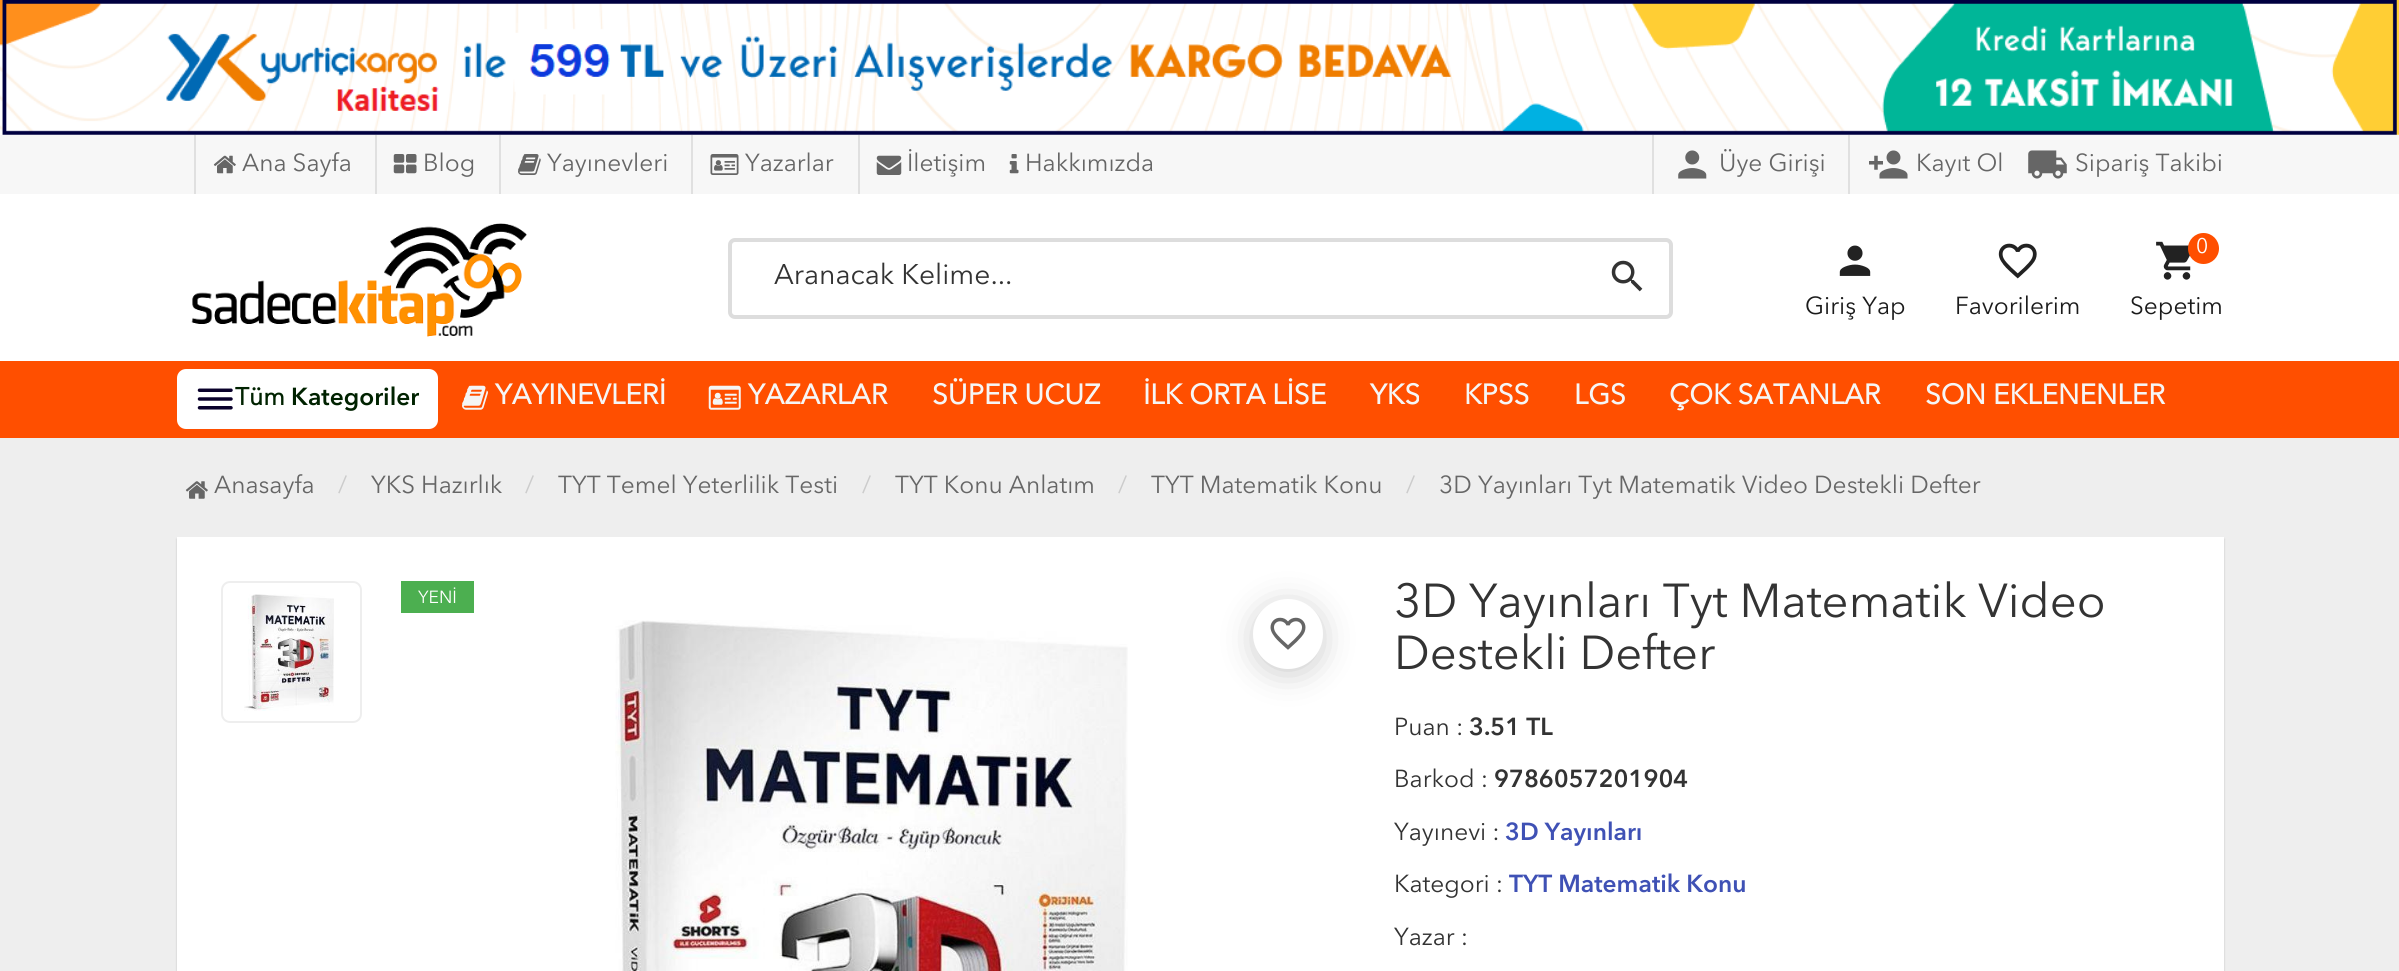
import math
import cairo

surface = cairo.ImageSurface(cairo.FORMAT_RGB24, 2399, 971)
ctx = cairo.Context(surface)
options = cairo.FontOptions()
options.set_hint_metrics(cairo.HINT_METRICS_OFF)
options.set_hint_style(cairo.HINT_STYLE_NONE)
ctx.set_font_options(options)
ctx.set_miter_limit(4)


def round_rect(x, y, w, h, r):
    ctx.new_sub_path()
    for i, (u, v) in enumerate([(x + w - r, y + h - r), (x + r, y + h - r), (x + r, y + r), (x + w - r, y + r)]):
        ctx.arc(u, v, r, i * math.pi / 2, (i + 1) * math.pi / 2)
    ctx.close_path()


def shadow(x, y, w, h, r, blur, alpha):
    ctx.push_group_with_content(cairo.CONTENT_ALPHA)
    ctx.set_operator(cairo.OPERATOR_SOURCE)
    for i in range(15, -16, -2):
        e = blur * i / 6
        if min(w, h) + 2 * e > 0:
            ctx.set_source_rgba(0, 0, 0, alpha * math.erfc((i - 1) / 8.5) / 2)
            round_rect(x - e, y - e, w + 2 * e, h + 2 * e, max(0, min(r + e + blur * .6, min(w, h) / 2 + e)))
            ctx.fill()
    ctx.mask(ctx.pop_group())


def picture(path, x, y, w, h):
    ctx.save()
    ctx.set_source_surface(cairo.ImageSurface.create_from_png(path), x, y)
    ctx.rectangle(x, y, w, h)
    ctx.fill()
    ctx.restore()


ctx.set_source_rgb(0.933, 0.933, 0.933)
ctx.paint()
ctx.set_source_rgb(1, 1, 1)
ctx.rectangle(0, 134, 2399, 227)
ctx.fill()
picture("img1.png", 0, 0, 2399, 135)
ctx.set_source_rgb(0.965, 0.965, 0.965)
ctx.rectangle(0, 135, 2399, 59)
ctx.fill()
ctx.set_source_rgb(0.878, 0.878, 0.878)
ctx.rectangle(194, 135, 2, 59)
ctx.fill()
picture("img2.png", 213, 155, 23, 19)
ctx.select_font_face("Avenir Next")
ctx.set_font_size(24.5)
ctx.set_source_rgb(0.4, 0.4, 0.4)
ctx.move_to(242, 171)
ctx.show_text("Ana Sayfa")
ctx.set_source_rgb(0.878, 0.878, 0.878)
ctx.rectangle(375, 135, 2, 59)
ctx.fill()
picture("img3.png", 393, 154, 24, 20)
ctx.set_source_rgb(0.4, 0.4, 0.4)
ctx.move_to(423, 171)
ctx.show_text("Blog")
ctx.set_source_rgb(0.878, 0.878, 0.878)
ctx.rectangle(499, 135, 2, 59)
ctx.fill()
picture("img4.png", 518, 154, 23, 21)
ctx.set_source_rgb(0.4, 0.4, 0.4)
ctx.move_to(547, 171)
ctx.show_text("Yayınevleri")
ctx.set_source_rgb(0.878, 0.878, 0.878)
ctx.rectangle(691, 135, 2, 59)
ctx.fill()
picture("img5.png", 710, 154, 29, 21)
ctx.set_source_rgb(0.4, 0.4, 0.4)
ctx.move_to(745, 171)
ctx.show_text("Yazarlar")
ctx.set_source_rgb(0.878, 0.878, 0.878)
ctx.rectangle(858, 135, 2, 59)
ctx.fill()
picture("img6.png", 876, 155, 26, 20)
ctx.set_source_rgb(0.4, 0.4, 0.4)
ctx.move_to(907, 171)
ctx.show_text("İletişim")
picture("img7.png", 1009, 154, 10, 20)
ctx.move_to(1025, 171)
ctx.show_text("Hakkımızda")
ctx.set_source_rgb(0.878, 0.878, 0.878)
ctx.rectangle(1652, 135, 2, 59)
ctx.fill()
picture("img8.png", 1678, 150, 29, 29)
ctx.set_source_rgb(0.4, 0.4, 0.4)
ctx.move_to(1719, 171)
ctx.show_text("Üye Girişi")
ctx.set_source_rgb(0.878, 0.878, 0.878)
ctx.rectangle(1848, 135, 2, 59)
ctx.fill()
picture("img9.png", 1869, 150, 39, 29)
ctx.set_source_rgb(0.4, 0.4, 0.4)
ctx.move_to(1916, 171)
ctx.show_text("Kayıt Ol")
picture("img10.png", 2028, 150, 39, 29)
ctx.move_to(2075, 171)
ctx.show_text("Sipariş Takibi")
picture("img11.png", 191, 223, 336, 114)
round_rect(730, 240, 941, 77, 5)
ctx.set_source_rgb(0.867, 0.867, 0.867)
ctx.set_line_width(4)
ctx.stroke()
ctx.set_font_size(28.25)
ctx.set_source_rgb(0.2, 0.2, 0.2)
ctx.move_to(774, 284)
ctx.show_text("Aranacak Kelime...")
picture("img12.png", 1611, 260, 32, 32)
picture("img13.png", 1839, 245, 32, 31)
ctx.set_font_size(24.5)
ctx.set_source_rgb(0.106, 0.106, 0.106)
ctx.move_to(1805, 314)
ctx.show_text("Giriş Yap")
picture("img14.png", 1998, 243, 39, 36)
ctx.move_to(1955, 314)
ctx.show_text("Favorilerim")
picture("img15.png", 2156, 241, 35, 39)
ctx.set_source_rgb(1, 0.31, 0)
ctx.arc(2203.5, 248.5, 15.5, 0, 2 * math.pi)
ctx.fill()
ctx.set_font_size(21)
ctx.set_source_rgb(1, 1, 1)
ctx.move_to(2196, 253)
ctx.show_text("0")
ctx.set_font_size(24.5)
ctx.set_source_rgb(0.106, 0.106, 0.106)
ctx.move_to(2130, 314)
ctx.show_text("Sepetim")
ctx.set_source_rgb(1, 0.31, 0)
ctx.rectangle(0, 361, 2399, 77)
ctx.fill()
ctx.set_source_rgb(1, 1, 1)
round_rect(177, 369, 261, 60, 9)
ctx.fill()
picture("img16.png", 197, 388, 36, 22)
ctx.select_font_face("Avenir Next", cairo.FONT_SLANT_NORMAL, cairo.FONT_WEIGHT_BOLD)
ctx.set_source_rgb(0, 0.133, 0)
ctx.move_to(235, 405)
ctx.show_text("Tüm")
ctx.select_font_face("Avenir Next SemiBold")
ctx.move_to(291, 405)
ctx.show_text("Kategoriler")
picture("img17.png", 462, 385, 26, 25)
ctx.select_font_face("Avenir Next", cairo.FONT_SLANT_NORMAL, cairo.FONT_WEIGHT_BOLD)
ctx.set_font_size(28)
ctx.set_source_rgb(0.961, 0.961, 0.961)
ctx.move_to(495, 404)
ctx.show_text("YAYINEVLERİ")
picture("img18.png", 708, 385, 33, 25)
ctx.move_to(748, 404)
ctx.show_text("YAZARLAR")
ctx.move_to(932, 404)
ctx.show_text("SÜPER UCUZ")
ctx.move_to(1143, 404)
ctx.show_text("İLK ORTA LİSE")
ctx.move_to(1370, 404)
ctx.show_text("YKS")
ctx.move_to(1464, 404)
ctx.show_text("KPSS")
ctx.move_to(1574, 404)
ctx.show_text("LGS")
ctx.move_to(1669, 404)
ctx.show_text("ÇOK SATANLAR")
ctx.move_to(1925, 404)
ctx.show_text("SON EKLENENLER")
picture("img19.png", 185, 481, 23, 18)
ctx.select_font_face("Avenir Next")
ctx.set_font_size(24.5)
ctx.set_source_rgb(0.4, 0.4, 0.4)
ctx.move_to(214, 493)
ctx.show_text("Anasayfa")
ctx.set_source_rgb(0.8, 0.8, 0.8)
ctx.move_to(338, 493)
ctx.show_text("/")
ctx.set_source_rgb(0.4, 0.4, 0.4)
ctx.move_to(371, 493)
ctx.show_text("YKS Hazırlık")
ctx.set_source_rgb(0.8, 0.8, 0.8)
ctx.move_to(525, 493)
ctx.show_text("/")
ctx.set_source_rgb(0.4, 0.4, 0.4)
ctx.move_to(558, 493)
ctx.show_text("TYT Temel Yeterlilik Testi")
ctx.set_source_rgb(0.8, 0.8, 0.8)
ctx.move_to(862, 493)
ctx.show_text("/")
ctx.set_source_rgb(0.4, 0.4, 0.4)
ctx.move_to(895, 493)
ctx.show_text("TYT Konu Anlatım")
ctx.set_source_rgb(0.8, 0.8, 0.8)
ctx.move_to(1118, 493)
ctx.show_text("/")
ctx.set_source_rgb(0.4, 0.4, 0.4)
ctx.move_to(1151, 493)
ctx.show_text("TYT Matematik Konu")
ctx.set_source_rgb(0.8, 0.8, 0.8)
ctx.move_to(1406, 493)
ctx.show_text("/")
ctx.set_source_rgb(0.4, 0.4, 0.4)
ctx.move_to(1439, 493)
ctx.show_text("3D Yayınları Tyt Matematik Video Destekli Defter")
ctx.set_source_rgb(0, 0, 0)
shadow(177, 539, 2047, 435, 0, 1, 0.2)
ctx.set_source_rgb(1, 1, 1)
ctx.rectangle(177, 537, 2047, 434)
ctx.fill()
round_rect(222, 582, 139, 140, 8)
ctx.set_source_rgb(0.933, 0.933, 0.933)
ctx.set_line_width(2)
ctx.stroke()
picture("img20.png", 244, 594, 90, 117)
ctx.set_source_rgb(0.298, 0.686, 0.314)
ctx.rectangle(401, 581, 73, 32)
ctx.fill()
ctx.set_font_size(17.5)
ctx.set_source_rgb(1, 1, 1)
ctx.move_to(418, 603)
ctx.show_text("YENİ")
ctx.set_source_rgb(0, 0, 0)
shadow(1258, 609, 60, 60, 30, 17.5, 0.25)
ctx.set_source_rgb(1, 1, 1)
ctx.arc(1288, 634, 35, 0, 2 * math.pi)
ctx.fill()
picture("img21.png", 1270, 617, 36, 33)
picture("img22.png", 615, 620, 513, 351)
ctx.set_font_size(47.25)
ctx.set_source_rgb(0.2, 0.2, 0.2)
ctx.move_to(1394, 617)
ctx.show_text("3D Yayınları Tyt Matematik Video")
ctx.move_to(1394, 669)
ctx.show_text("Destekli Defter")
ctx.set_font_size(24.5)
ctx.move_to(1394, 735)
ctx.show_text("Puan :")
ctx.select_font_face("Avenir Next SemiBold")
ctx.move_to(1469, 735)
ctx.show_text("3.51 TL")
ctx.select_font_face("Avenir Next")
ctx.move_to(1394, 787)
ctx.show_text("Barkod :")
ctx.select_font_face("Avenir Next SemiBold")
ctx.move_to(1494, 787)
ctx.show_text("9786057201904")
ctx.select_font_face("Avenir Next")
ctx.move_to(1394, 840)
ctx.show_text("Yayınevi :")
ctx.select_font_face("Avenir Next SemiBold")
ctx.set_source_rgb(0.247, 0.318, 0.71)
ctx.move_to(1505, 840)
ctx.show_text("3D Yayınları")
ctx.select_font_face("Avenir Next")
ctx.set_source_rgb(0.2, 0.2, 0.2)
ctx.move_to(1394, 892)
ctx.show_text("Kategori :")
ctx.select_font_face("Avenir Next SemiBold")
ctx.set_source_rgb(0.247, 0.318, 0.71)
ctx.move_to(1509, 892)
ctx.show_text("TYT Matematik Konu")
ctx.select_font_face("Avenir Next")
ctx.set_source_rgb(0.2, 0.2, 0.2)
ctx.move_to(1394, 945)
ctx.show_text("Yazar :")
surface.write_to_png("page.png")
